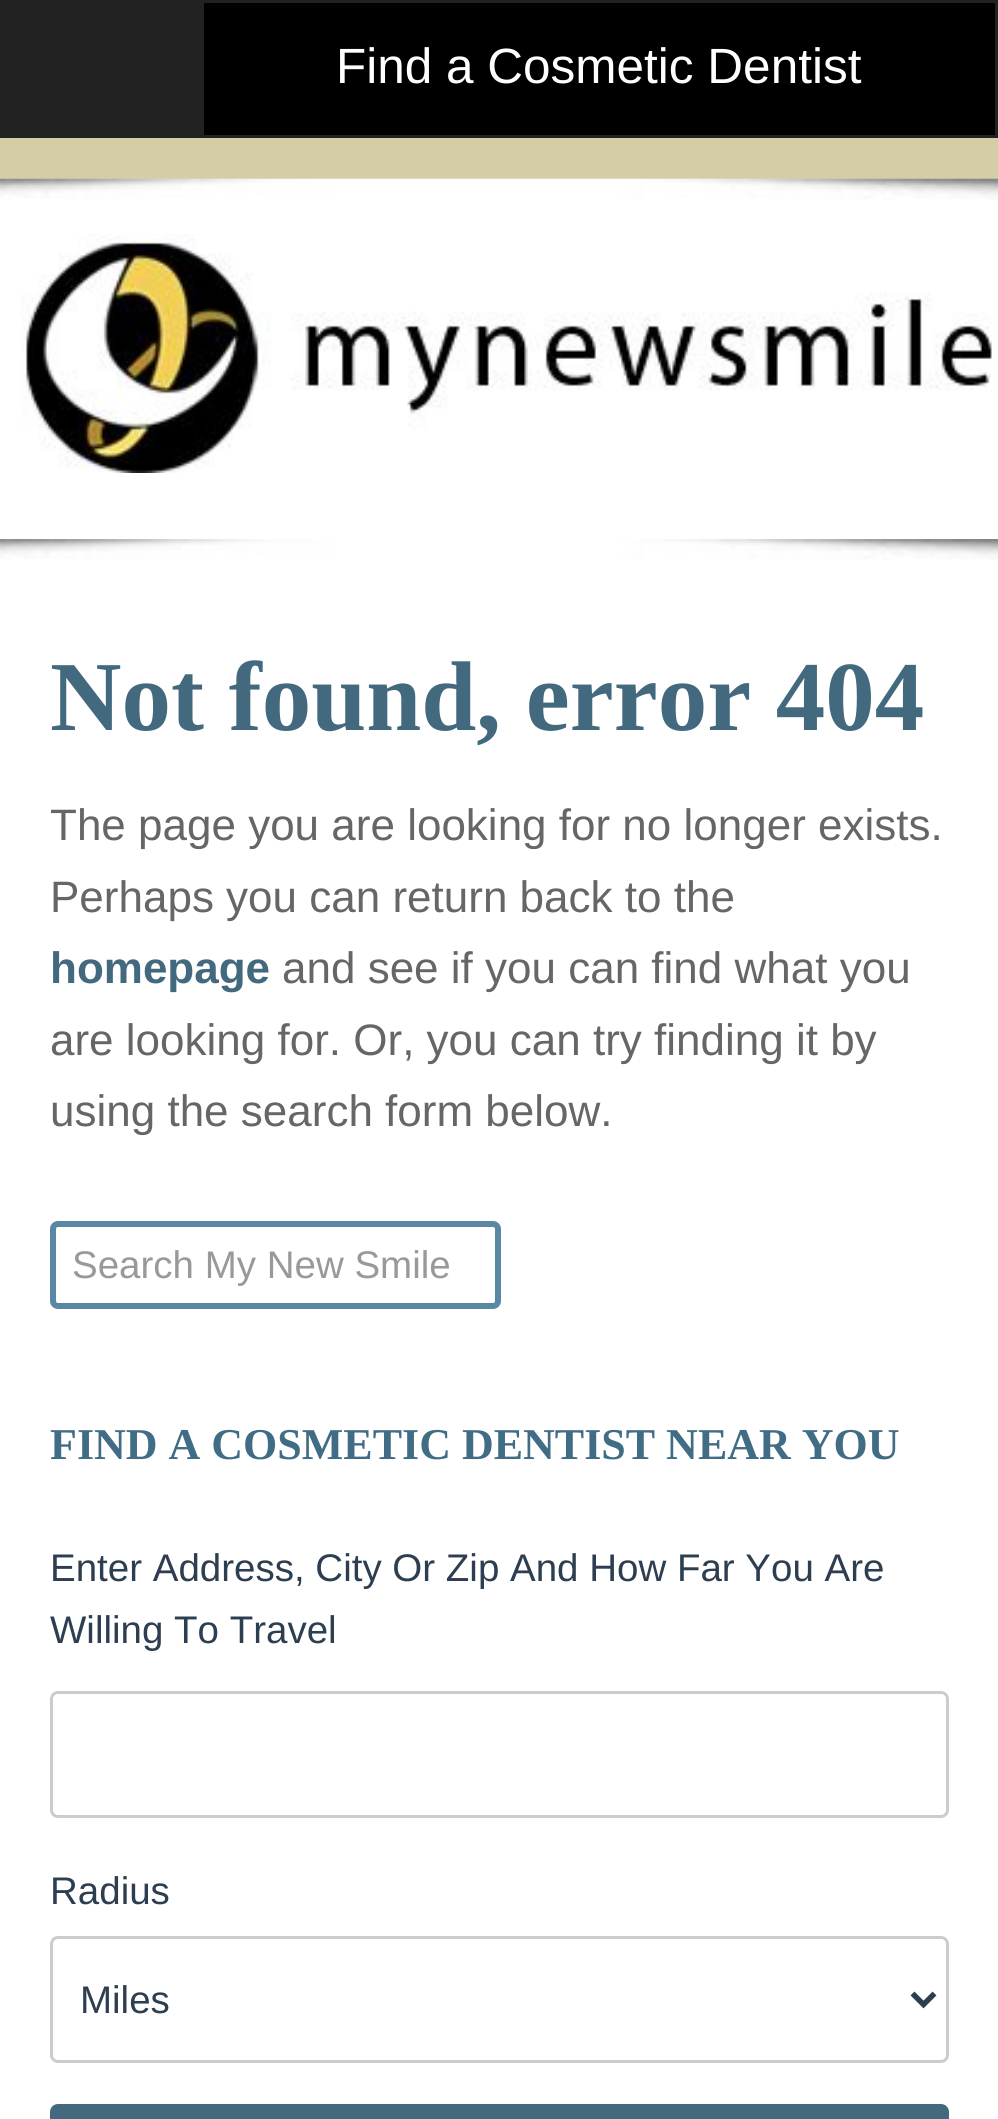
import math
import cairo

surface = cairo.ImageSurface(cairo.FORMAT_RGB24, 998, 2119)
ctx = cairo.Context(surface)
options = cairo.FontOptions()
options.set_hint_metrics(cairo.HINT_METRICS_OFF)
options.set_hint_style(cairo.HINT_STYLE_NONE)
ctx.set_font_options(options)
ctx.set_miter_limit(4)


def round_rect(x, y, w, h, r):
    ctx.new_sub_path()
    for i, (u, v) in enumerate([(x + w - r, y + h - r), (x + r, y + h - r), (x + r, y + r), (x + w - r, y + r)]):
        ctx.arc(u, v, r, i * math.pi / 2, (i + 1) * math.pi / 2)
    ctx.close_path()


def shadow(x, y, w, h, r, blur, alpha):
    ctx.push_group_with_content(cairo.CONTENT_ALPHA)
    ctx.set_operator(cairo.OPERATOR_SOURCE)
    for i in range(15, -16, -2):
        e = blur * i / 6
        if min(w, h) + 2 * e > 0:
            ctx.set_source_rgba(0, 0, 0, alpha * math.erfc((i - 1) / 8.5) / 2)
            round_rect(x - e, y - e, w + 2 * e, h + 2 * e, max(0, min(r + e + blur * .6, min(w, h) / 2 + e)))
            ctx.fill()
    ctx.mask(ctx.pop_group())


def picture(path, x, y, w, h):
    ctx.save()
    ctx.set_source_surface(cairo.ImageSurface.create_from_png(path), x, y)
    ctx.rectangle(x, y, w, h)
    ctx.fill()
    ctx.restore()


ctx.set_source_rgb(1, 1, 1)
ctx.paint()
ctx.set_source_rgb(0.133, 0.133, 0.133)
ctx.rectangle(0, 0, 201, 138)
ctx.fill()
ctx.set_source_rgb(0, 0, 0)
ctx.rectangle(202.5, 1.5, 794, 135)
ctx.fill_preserve()
ctx.set_source_rgb(0.133, 0.133, 0.133)
ctx.set_line_width(3)
ctx.stroke()
ctx.select_font_face("Liberation Sans")
ctx.set_font_size(49.5)
ctx.set_source_rgb(1, 1, 1)
ctx.move_to(336, 83)
ctx.show_text("Find a Cosmetic Dentist")
ctx.set_source_rgb(0.835, 0.804, 0.651)
ctx.rectangle(0, 138, 998, 41)
ctx.fill()
picture("img1.png", 0, 178, 998, 22)
picture("img2.png", 20, 234, 972, 239)
picture("img3.png", 0, 539, 998, 21)
ctx.select_font_face("Liberation Serif", cairo.FONT_SLANT_NORMAL, cairo.FONT_WEIGHT_BOLD)
ctx.set_font_size(99)
ctx.set_source_rgb(0.263, 0.412, 0.498)
ctx.move_to(50, 730)
ctx.show_text("Not found, error 404")
ctx.select_font_face("Liberation Sans")
ctx.set_font_size(44)
ctx.set_source_rgb(0.4, 0.4, 0.4)
ctx.move_to(50, 840)
ctx.show_text("The page you are looking for no longer exists.")
ctx.move_to(50, 912)
ctx.show_text("Perhaps you can return back to the")
ctx.select_font_face("Liberation Sans", cairo.FONT_SLANT_NORMAL, cairo.FONT_WEIGHT_BOLD)
ctx.set_source_rgb(0.263, 0.412, 0.498)
ctx.move_to(50, 983)
ctx.show_text("homepage")
ctx.select_font_face("Liberation Sans")
ctx.set_source_rgb(0.4, 0.4, 0.4)
ctx.move_to(282, 983)
ctx.show_text("and see if you can find what you")
ctx.move_to(50, 1055)
ctx.show_text("are looking for. Or, you can try finding it by")
ctx.move_to(50, 1126)
ctx.show_text("using the search form below.")
round_rect(53, 1224, 445, 82, 5)
ctx.set_source_rgb(0.345, 0.533, 0.643)
ctx.set_line_width(6)
ctx.stroke()
ctx.set_font_size(38.5)
ctx.set_source_rgb(0.6, 0.6, 0.6)
ctx.move_to(72, 1278)
ctx.show_text("Search My New Smile")
ctx.select_font_face("Liberation Serif", cairo.FONT_SLANT_NORMAL, cairo.FONT_WEIGHT_BOLD)
ctx.set_font_size(44)
ctx.set_source_rgb(0.255, 0.424, 0.525)
ctx.move_to(50, 1459)
ctx.show_text("FIND A COSMETIC DENTIST NEAR YOU")
ctx.select_font_face("Liberation Sans")
ctx.set_font_size(38.5)
ctx.set_source_rgb(0.173, 0.243, 0.314)
ctx.move_to(50, 1581)
ctx.show_text("Enter Address, City Or Zip And How Far You Are")
ctx.move_to(50, 1643)
ctx.show_text("Willing To Travel")
round_rect(51.5, 1692.5, 896, 124, 6.5)
ctx.set_source_rgb(0.8, 0.8, 0.8)
ctx.set_line_width(3)
ctx.stroke()
ctx.set_source_rgb(0.173, 0.243, 0.314)
ctx.move_to(50, 1904)
ctx.show_text("Radius")
round_rect(51.5, 1937.5, 896, 124, 6.5)
ctx.set_source_rgb(0.8, 0.8, 0.8)
ctx.stroke()
ctx.new_path()
ctx.move_to(912.5, 1993.5)
ctx.line_to(923.5, 2004.5)
ctx.line_to(934.5, 1993.5)
ctx.set_source_rgb(0.173, 0.243, 0.314)
ctx.set_line_width(5.5)
ctx.stroke()
ctx.move_to(80, 2013)
ctx.show_text("Miles")
ctx.set_source_rgb(0.11, 0.122, 0.247)
shadow(50, 2109, 899, 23, 8, 1.5, 0.06)
ctx.set_source_rgb(0.263, 0.412, 0.498)
round_rect(50, 2104, 899, 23, 8)
ctx.fill()
surface.write_to_png("page.png")
